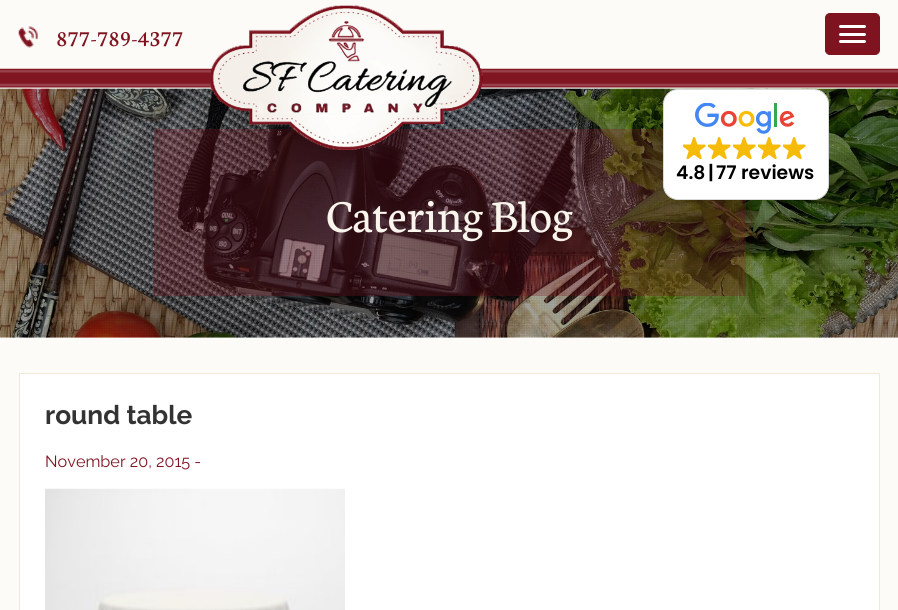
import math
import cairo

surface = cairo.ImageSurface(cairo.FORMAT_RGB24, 898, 610)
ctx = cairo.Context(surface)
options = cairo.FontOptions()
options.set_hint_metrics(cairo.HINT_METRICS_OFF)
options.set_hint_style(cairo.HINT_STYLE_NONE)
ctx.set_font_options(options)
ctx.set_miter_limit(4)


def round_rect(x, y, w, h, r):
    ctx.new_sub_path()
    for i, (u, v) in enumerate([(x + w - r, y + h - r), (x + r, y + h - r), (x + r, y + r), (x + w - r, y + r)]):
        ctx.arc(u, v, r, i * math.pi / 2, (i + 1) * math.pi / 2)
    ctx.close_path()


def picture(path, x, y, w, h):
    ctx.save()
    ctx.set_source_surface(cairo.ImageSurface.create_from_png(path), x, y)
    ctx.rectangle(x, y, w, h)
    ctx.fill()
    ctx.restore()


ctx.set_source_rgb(0.992, 0.984, 0.969)
ctx.paint()
picture("img1.png", 0, 68, 898, 20)
picture("img2.png", 18, 26, 20, 22)
ctx.select_font_face("Neuton")
ctx.set_font_size(23.75)
ctx.set_source_rgb(0.498, 0.078, 0.125)
ctx.move_to(56, 46)
ctx.show_text("877-789-4377")
picture("img4.png", 0, 88, 898, 250)
picture("img5.png", 0, 88, 898, 250)
ctx.set_source_rgba(0.498, 0.086, 0.133, 0.3)
ctx.rectangle(154, 129, 592, 167)
ctx.fill()
picture("img3.png", 209, 5, 274, 145)
ctx.set_source_rgb(0.498, 0.078, 0.125)
round_rect(825.5, 13.5, 54, 41, 4.5)
ctx.fill_preserve()
ctx.set_line_width(1)
ctx.stroke()
ctx.set_source_rgb(1, 1, 1)
round_rect(839, 25, 27, 3, 1.5)
ctx.fill()
round_rect(839, 33, 27, 3, 1.5)
ctx.fill()
round_rect(839, 40, 27, 3, 1.5)
ctx.fill()
round_rect(663.5, 89.5, 165, 110, 14.5)
ctx.fill_preserve()
ctx.set_source_rgb(0.851, 0.851, 0.851)
ctx.stroke()
picture("img6.png", 695, 103, 100, 31)
picture("img7.png", 683, 137, 23, 23)
picture("img7.png", 708, 137, 23, 23)
picture("img7.png", 733, 137, 23, 23)
picture("img7.png", 758, 137, 23, 23)
picture("img7.png", 783, 137, 23, 23)
ctx.select_font_face("Poppins SemiBold")
ctx.set_font_size(18.75)
ctx.set_source_rgb(0, 0, 0)
ctx.move_to(676, 179)
ctx.show_text("4.8")
ctx.move_to(708, 179)
ctx.show_text("|")
ctx.move_to(716, 179)
ctx.show_text("77 reviews")
ctx.select_font_face("Neuton")
ctx.set_font_size(48.75)
ctx.set_source_rgb(0.976, 0.957, 0.925)
ctx.move_to(326, 232)
ctx.show_text("Catering Blog")
ctx.set_source_rgb(1, 1, 1)
ctx.rectangle(19.5, 373.5, 860, 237)
ctx.fill_preserve()
ctx.set_source_rgb(0.949, 0.91, 0.843)
ctx.stroke()
ctx.select_font_face("Raleway", cairo.FONT_SLANT_NORMAL, cairo.FONT_WEIGHT_BOLD)
ctx.set_font_size(26.25)
ctx.set_source_rgb(0.2, 0.2, 0.2)
ctx.move_to(45, 424)
ctx.show_text("round table")
ctx.select_font_face("Raleway")
ctx.set_font_size(16.25)
ctx.set_source_rgb(0.498, 0.078, 0.125)
ctx.move_to(45, 467)
ctx.show_text("November 20, 2015 -")
picture("img8.png", 45, 488, 300, 122)
surface.write_to_png("page.png")
